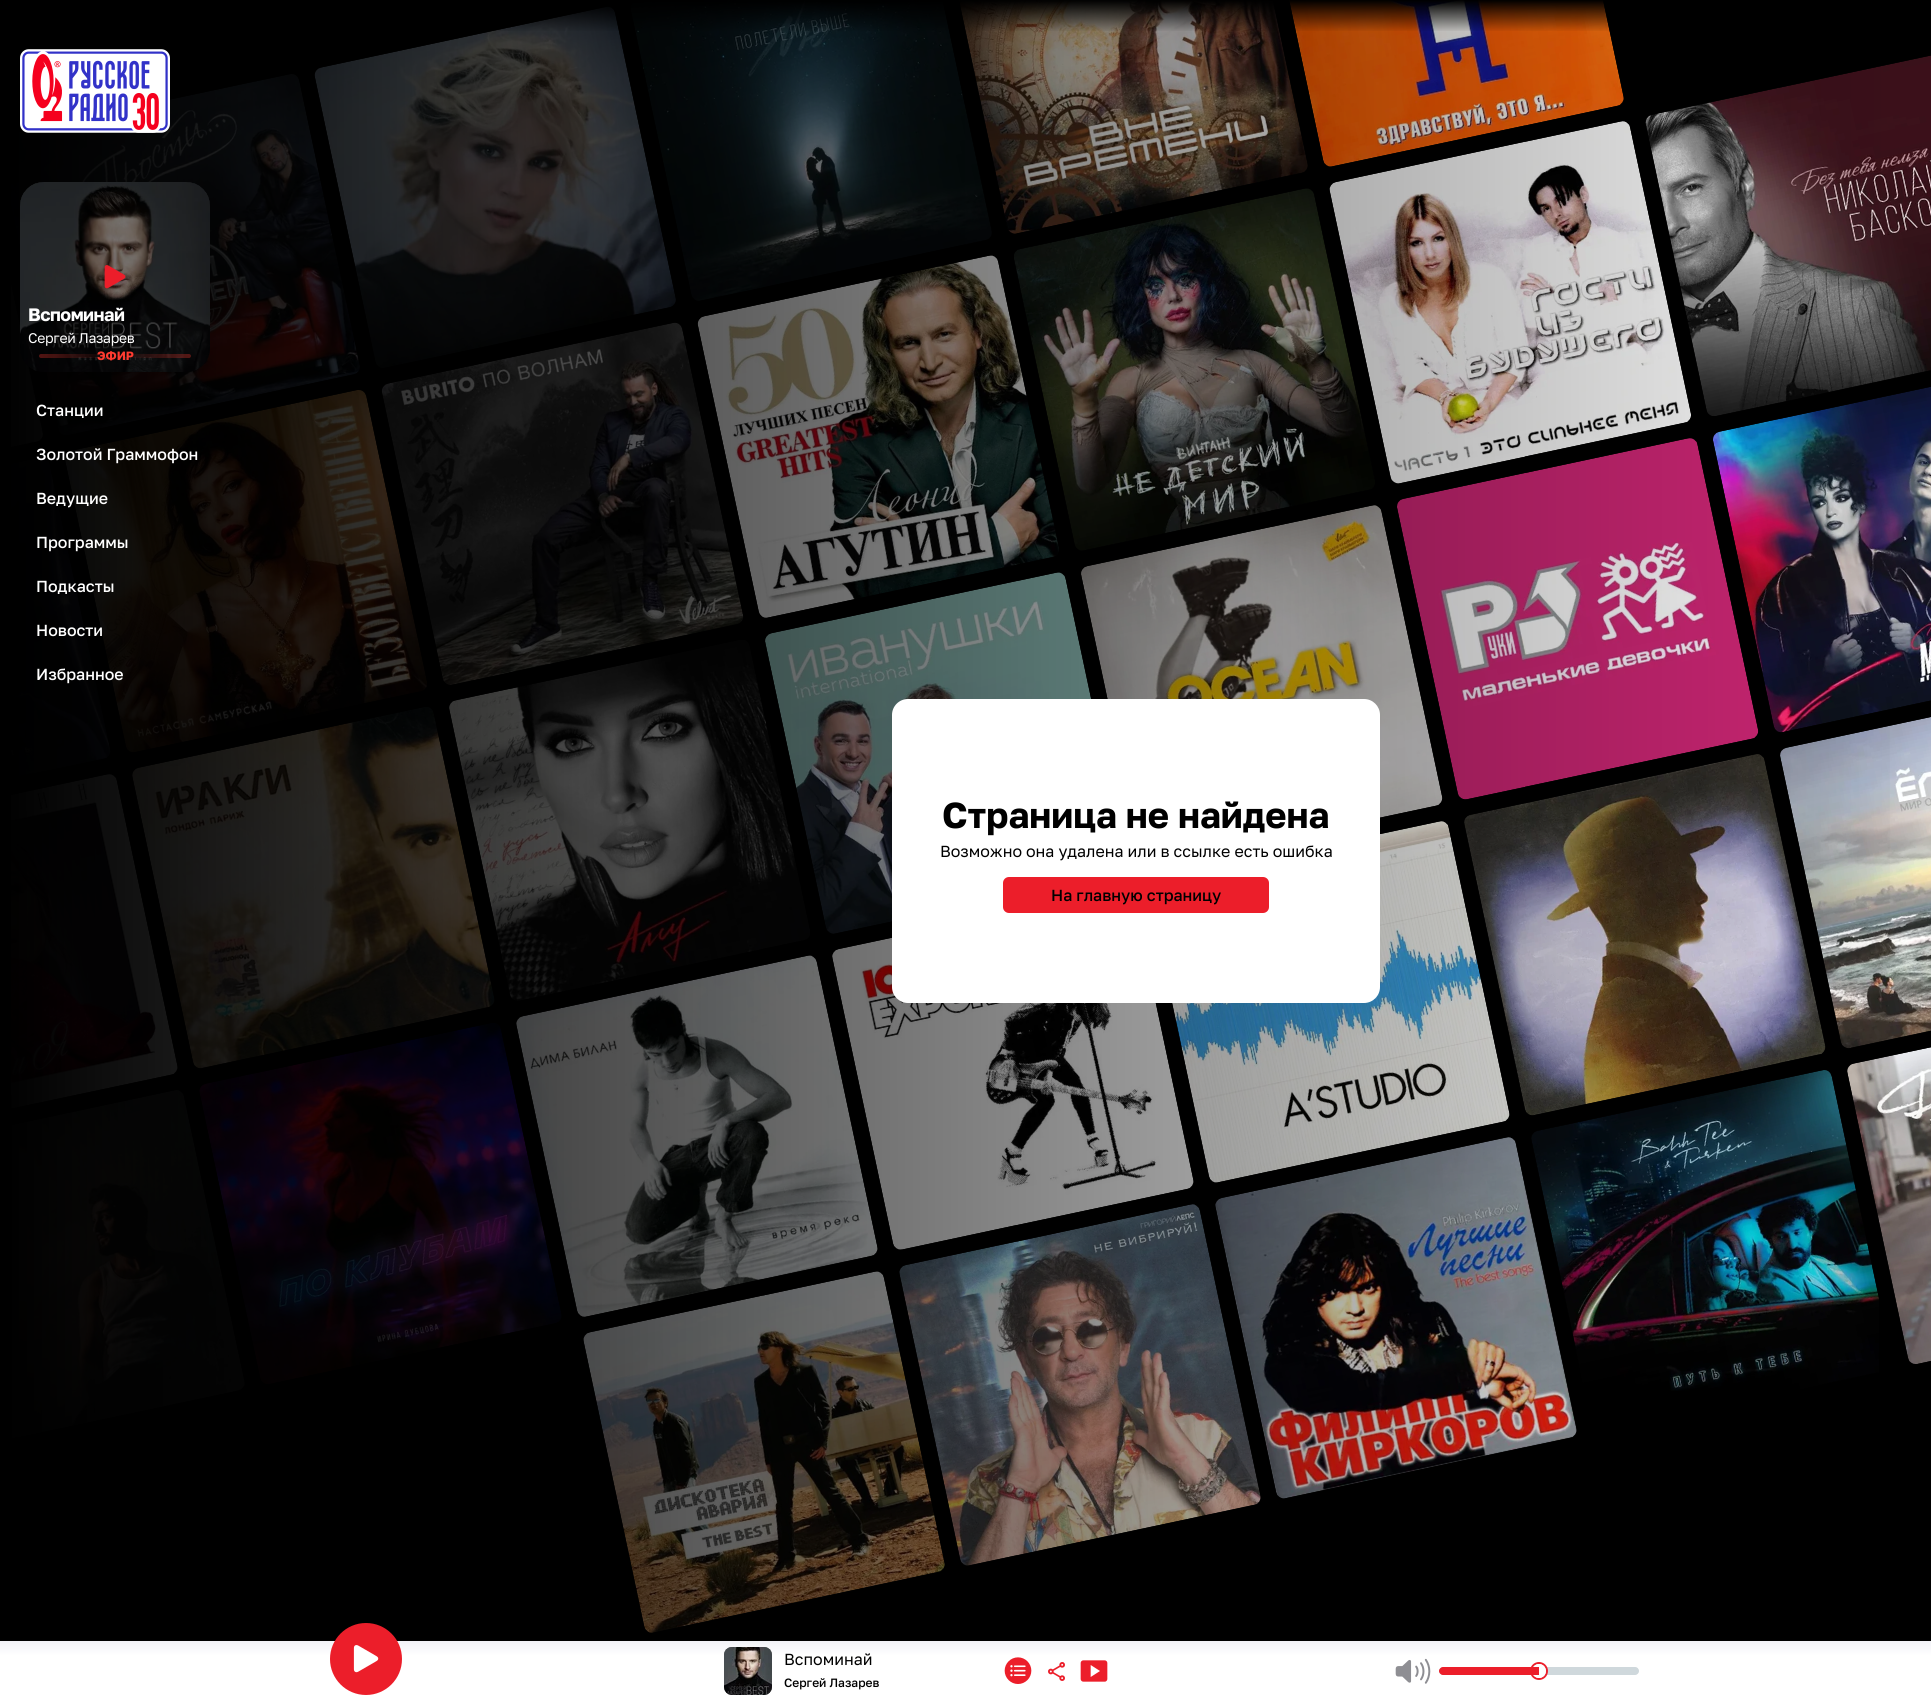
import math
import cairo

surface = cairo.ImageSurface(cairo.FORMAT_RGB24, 1931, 1701)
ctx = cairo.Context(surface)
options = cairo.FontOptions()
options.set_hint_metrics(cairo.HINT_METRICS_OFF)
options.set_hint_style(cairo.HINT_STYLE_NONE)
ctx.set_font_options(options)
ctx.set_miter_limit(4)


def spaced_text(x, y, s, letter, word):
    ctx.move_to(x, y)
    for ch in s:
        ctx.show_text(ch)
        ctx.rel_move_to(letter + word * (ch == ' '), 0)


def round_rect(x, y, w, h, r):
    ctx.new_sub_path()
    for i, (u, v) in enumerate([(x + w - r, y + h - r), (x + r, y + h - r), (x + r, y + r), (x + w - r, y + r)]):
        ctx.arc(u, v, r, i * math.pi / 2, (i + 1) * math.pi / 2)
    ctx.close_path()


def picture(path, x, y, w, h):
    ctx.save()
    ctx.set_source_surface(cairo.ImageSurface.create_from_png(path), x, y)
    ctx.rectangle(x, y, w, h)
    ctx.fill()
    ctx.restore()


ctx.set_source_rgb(0, 0, 0)
ctx.paint()
picture("img7.png", 11, 283, 32, 164)
picture("img1.png", 11, 74, 349, 362)
picture("img2.png", 314, 6, 362, 362)
picture("img3.png", 630, 0, 362, 301)
picture("img4.png", 959, 0, 349, 234)
picture("img5.png", 1289, 0, 335, 167)
picture("img14.png", 11, 457, 100, 322)
picture("img8.png", 65, 390, 362, 363)
picture("img9.png", 381, 322, 363, 363)
picture("img10.png", 697, 255, 362, 363)
picture("img11.png", 1014, 188, 361, 363)
picture("img12.png", 1329, 121, 362, 363)
picture("img6.png", 1645, 55, 286, 361)
picture("img21.png", 11, 774, 167, 335)
picture("img15.png", 132, 707, 363, 362)
picture("img16.png", 449, 640, 361, 361)
picture("img17.png", 765, 572, 326, 362)
picture("img18.png", 1081, 505, 362, 313)
picture("img19.png", 1397, 438, 362, 362)
picture("img13.png", 1713, 387, 218, 346)
picture("img28.png", 12, 1090, 233, 349)
picture("img22.png", 199, 1023, 363, 361)
picture("img23.png", 516, 955, 362, 362)
picture("img24.png", 832, 937, 362, 313)
picture("img25.png", 1172, 821, 338, 362)
picture("img26.png", 1464, 754, 362, 362)
picture("img20.png", 1780, 717, 151, 332)
picture("img29.png", 583, 1271, 362, 362)
picture("img30.png", 899, 1204, 362, 362)
picture("img31.png", 1215, 1137, 362, 362)
picture("img32.png", 1531, 1070, 348, 321)
picture("img27.png", 1847, 1047, 84, 317)
gradient = cairo.LinearGradient(966, 0, 966, 32)
gradient.add_color_stop_rgba(0, 0, 0, 0, 1)
gradient.add_color_stop_rgba(1, 0, 0, 0, 0)
ctx.set_source(gradient)
ctx.rectangle(495, 0, 1115, 31)
ctx.fill()
gradient = cairo.LinearGradient(0, 851, 1931, 850)
gradient.add_color_stop_rgba(0, 0, 0, 0, 1)
gradient.add_color_stop_rgba(1, 0, 0, 0, 0)
ctx.set_source(gradient)
ctx.rectangle(11, 1, 1879, 1632)
ctx.fill()
picture("img33.png", 20, 49, 150, 84)
picture("img34.png", 20, 182, 190, 190)
ctx.set_source_rgba(0, 0, 0, 0.5)
round_rect(20, 182, 190, 190, 24)
ctx.fill()
picture("img35.png", 104, 265, 22, 24)
ctx.select_font_face("Golos Text", cairo.FONT_SLANT_NORMAL, cairo.FONT_WEIGHT_BOLD)
ctx.set_font_size(18)
ctx.set_source_rgb(1, 1, 1)
spaced_text(28, 321, "Вспоминай", -0.5, 0)
ctx.select_font_face("Golos Text")
ctx.set_font_size(14)
spaced_text(28, 343, "Сергей Лазарев", -0.3, 0)
ctx.select_font_face("Golos Text", cairo.FONT_SLANT_NORMAL, cairo.FONT_WEIGHT_BOLD)
ctx.set_font_size(12)
ctx.set_source_rgb(1, 0.231, 0.188)
ctx.move_to(97, 360)
ctx.show_text("ЭФИР")
gradient = cairo.LinearGradient(39, 356, 191, 356)
gradient.add_color_stop_rgba(0, 1, 0.231, 0.188, 0.32)
gradient.add_color_stop_rgba(0.47, 1, 0.231, 0.188, 0)
gradient.add_color_stop_rgba(0.53, 1, 0.231, 0.188, 0)
gradient.add_color_stop_rgba(1, 1, 0.231, 0.188, 0.32)
ctx.set_source(gradient)
round_rect(39, 354, 152, 4, 2)
ctx.fill()
ctx.select_font_face("Golos Text Medium")
ctx.set_font_size(16)
ctx.set_source_rgb(1, 1, 1)
ctx.move_to(36, 416)
ctx.show_text("Станции")
ctx.move_to(36, 460)
ctx.show_text("Золотой Граммофон")
ctx.move_to(36, 504)
ctx.show_text("Ведущие")
ctx.move_to(36, 548)
ctx.show_text("Программы")
ctx.move_to(36, 592)
ctx.show_text("Подкасты")
ctx.move_to(36, 636)
ctx.show_text("Новости")
ctx.move_to(36, 680)
ctx.show_text("Избранное")
round_rect(892, 699, 488, 304, 16)
ctx.fill()
ctx.select_font_face("Golos Text", cairo.FONT_SLANT_NORMAL, cairo.FONT_WEIGHT_BOLD)
ctx.set_font_size(36)
ctx.set_source_rgb(0, 0, 0)
ctx.move_to(942, 828)
ctx.show_text("Страница не найдена")
ctx.select_font_face("Golos Text")
ctx.set_font_size(16)
ctx.move_to(940, 857)
ctx.show_text("Возможно она удалена или в ссылке есть ошибка")
ctx.set_source_rgb(0.925, 0.118, 0.165)
round_rect(1003, 877, 266, 36, 6)
ctx.fill()
ctx.select_font_face("Golos Text Medium")
ctx.set_source_rgb(0, 0, 0)
ctx.move_to(1051, 901)
ctx.show_text("На главную страницу")
gradient = cairo.LinearGradient(966, 1701, 966, 1641)
gradient.add_color_stop_rgba(0, 1, 1, 1, 1)
gradient.add_color_stop_rgba(0.75, 1, 1, 1, 1)
gradient.add_color_stop_rgba(1, 0.949, 0.949, 0.969, 1)
ctx.set_source(gradient)
ctx.rectangle(0, 1641, 1931, 60)
ctx.fill()
ctx.set_source_rgb(0.925, 0.118, 0.165)
ctx.arc(366, 1659, 36, 0, 2 * math.pi)
ctx.fill()
picture("img36.png", 353, 1645, 26, 28)
ctx.set_source_rgb(0.38, 0.38, 0.38)
round_rect(724, 1647, 48, 48, 8)
ctx.fill()
picture("img37.png", 724, 1647, 48, 48)
ctx.select_font_face("Golos Text")
ctx.set_source_rgb(0, 0, 0)
ctx.move_to(784, 1665)
ctx.show_text("Вспоминай")
ctx.select_font_face("Golos Text Medium")
ctx.set_font_size(12)
ctx.move_to(784, 1687)
ctx.show_text("Сергей Лазарев")
picture("img38.png", 1004, 1657, 28, 27)
picture("img39.png", 1048, 1662, 17, 19)
picture("img40.png", 1080, 1660, 28, 22)
picture("img41.png", 1395, 1658, 36, 26)
ctx.set_source_rgb(0.812, 0.847, 0.863)
round_rect(1439, 1667, 200, 8, 4)
ctx.fill()
ctx.arc(1539, 1671, 8, 0, 2 * math.pi)
ctx.set_source_rgb(0.925, 0.118, 0.165)
ctx.stroke()
ctx.set_source_rgb(1, 1, 1)
ctx.arc(1539, 1671, 7, 0, 2 * math.pi)
ctx.fill()
ctx.set_source_rgb(0.925, 0.118, 0.165)
ctx.new_path()
ctx.move_to(1443, 1667)
ctx.line_to(1539, 1667)
ctx.line_to(1539, 1675)
ctx.line_to(1443, 1675)
ctx.curve_to(1441, 1675, 1439, 1673, 1439, 1671)
ctx.curve_to(1439, 1669, 1441, 1667, 1443, 1667)
ctx.close_path()
ctx.fill()
surface.write_to_png("page.png")
